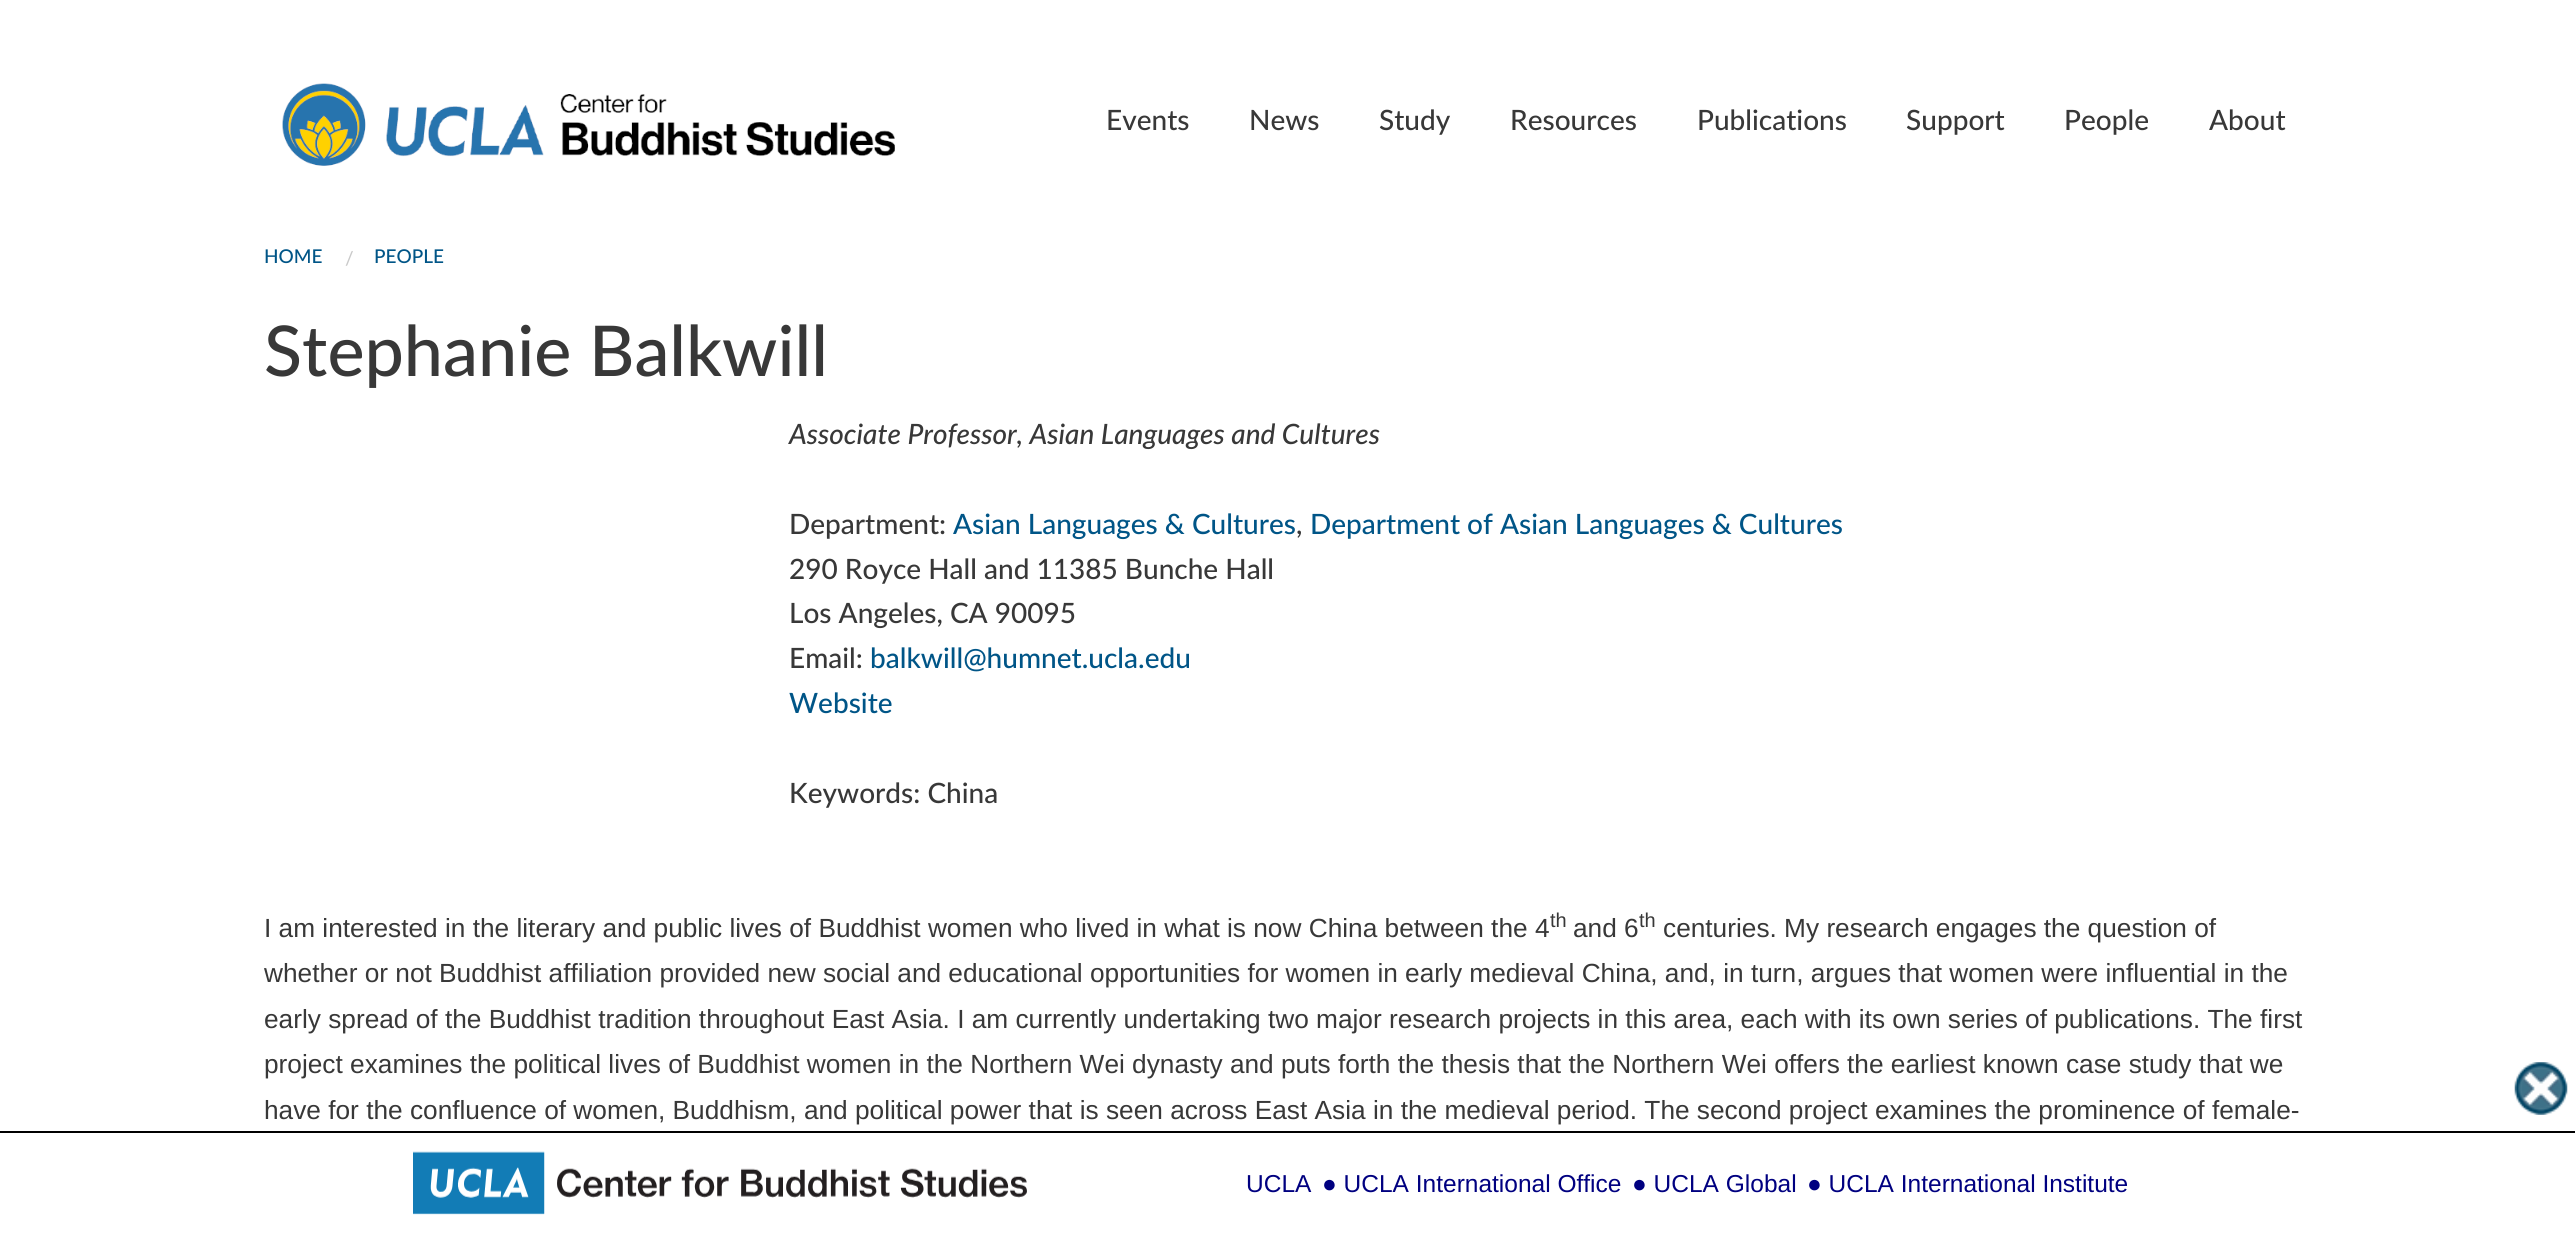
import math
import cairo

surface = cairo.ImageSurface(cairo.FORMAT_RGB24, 2575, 1233)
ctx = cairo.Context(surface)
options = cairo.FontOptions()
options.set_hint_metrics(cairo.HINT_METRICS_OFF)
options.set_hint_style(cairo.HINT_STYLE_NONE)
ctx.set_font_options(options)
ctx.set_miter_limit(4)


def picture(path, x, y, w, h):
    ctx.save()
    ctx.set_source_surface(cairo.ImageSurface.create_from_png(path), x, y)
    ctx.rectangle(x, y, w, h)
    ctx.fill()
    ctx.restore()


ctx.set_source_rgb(1, 1, 1)
ctx.paint()
picture("img1.png", 282, 83, 613, 83)
ctx.select_font_face("Lato Medium")
ctx.set_font_size(28)
ctx.set_source_rgb(0.22, 0.22, 0.22)
ctx.move_to(1106, 130)
ctx.show_text("Events")
ctx.move_to(1249, 130)
ctx.show_text("News")
ctx.move_to(1379, 130)
ctx.show_text("Study")
ctx.move_to(1510, 130)
ctx.show_text("Resources")
ctx.move_to(1697, 130)
ctx.show_text("Publications")
ctx.move_to(1906, 130)
ctx.show_text("Support")
ctx.move_to(2064, 130)
ctx.show_text("People")
ctx.move_to(2209, 130)
ctx.show_text("About")
ctx.set_font_size(19)
ctx.set_source_rgb(0, 0.333, 0.529)
ctx.move_to(264, 263)
ctx.show_text("HOME")
ctx.set_source_rgb(0.792, 0.792, 0.792)
ctx.move_to(345, 265)
ctx.show_text("/")
ctx.set_source_rgb(0, 0.333, 0.529)
ctx.move_to(374, 263)
ctx.show_text("PEOPLE")
ctx.set_font_size(70)
ctx.set_source_rgb(0.22, 0.22, 0.22)
ctx.move_to(264, 376)
ctx.show_text("Stephanie Balkwill")
ctx.select_font_face("Lato Medium", cairo.FONT_SLANT_ITALIC)
ctx.set_font_size(28)
ctx.move_to(789, 444)
ctx.show_text("Associate Professor, Asian Languages and Cultures")
ctx.select_font_face("Lato Medium")
ctx.move_to(789, 534)
ctx.show_text("Department:")
ctx.set_source_rgb(0, 0.333, 0.529)
ctx.move_to(953, 534)
ctx.show_text("Asian Languages & Cultures")
ctx.set_source_rgb(0.22, 0.22, 0.22)
ctx.move_to(1296, 534)
ctx.show_text(",")
ctx.set_source_rgb(0, 0.333, 0.529)
ctx.move_to(1310, 534)
ctx.show_text("Department of Asian Languages & Cultures")
ctx.set_source_rgb(0.22, 0.22, 0.22)
ctx.move_to(789, 579)
ctx.show_text("290 Royce Hall and 11385 Bunche Hall")
ctx.move_to(789, 623)
ctx.show_text("Los Angeles, CA 90095")
ctx.move_to(789, 668)
ctx.show_text("Email:")
ctx.set_source_rgb(0, 0.333, 0.529)
ctx.move_to(870, 668)
ctx.show_text("balkwill@humnet.ucla.edu")
ctx.move_to(789, 713)
ctx.show_text("Website")
ctx.set_source_rgb(0.22, 0.22, 0.22)
ctx.move_to(789, 803)
ctx.show_text("Keywords: China")
ctx.select_font_face("Liberation Sans")
ctx.set_font_size(26.25)
ctx.move_to(264, 937)
ctx.show_text("I am interested in the literary and public lives of Buddhist women who lived in what is now China between the 4")
ctx.set_font_size(20)
ctx.move_to(1550, 927)
ctx.show_text("th")
ctx.set_font_size(26.25)
ctx.move_to(1573, 937)
ctx.show_text("and 6")
ctx.set_font_size(20)
ctx.move_to(1639, 927)
ctx.show_text("th")
ctx.set_font_size(26.25)
ctx.move_to(1663, 937)
ctx.show_text("centuries. My research engages the question of")
ctx.move_to(264, 982)
ctx.show_text("whether or not Buddhist affiliation provided new social and educational opportunities for women in early medieval China, and, in turn, argues that women were influential in the")
ctx.move_to(264, 1028)
ctx.show_text("early spread of the Buddhist tradition throughout East Asia. I am currently undertaking two major research projects in this area, each with its own series of publications. The first")
ctx.move_to(264, 1073)
ctx.show_text("project examines the political lives of Buddhist women in the Northern Wei dynasty and puts forth the thesis that the Northern Wei offers the earliest known case study that we")
ctx.move_to(264, 1119)
ctx.show_text("have for the confluence of women, Buddhism, and political power that is seen across East Asia in the medieval period. The second project examines the prominence of female-")
ctx.set_source_rgb(0, 0, 0)
ctx.rectangle(0, 1131, 2575, 2)
ctx.fill()
picture("img2.png", 2514, 1062, 54, 53)
picture("img3.png", 413, 1151, 614, 64)
ctx.set_font_size(24.5)
ctx.set_source_rgb(0, 0, 0.502)
ctx.move_to(1246, 1192)
ctx.show_text("UCLA")
ctx.move_to(1322, 1192)
ctx.show_text("● UCLA International Office")
ctx.move_to(1632, 1192)
ctx.show_text("● UCLA Global")
ctx.move_to(1807, 1192)
ctx.show_text("● UCLA International Institute")
surface.write_to_png("page.png")
